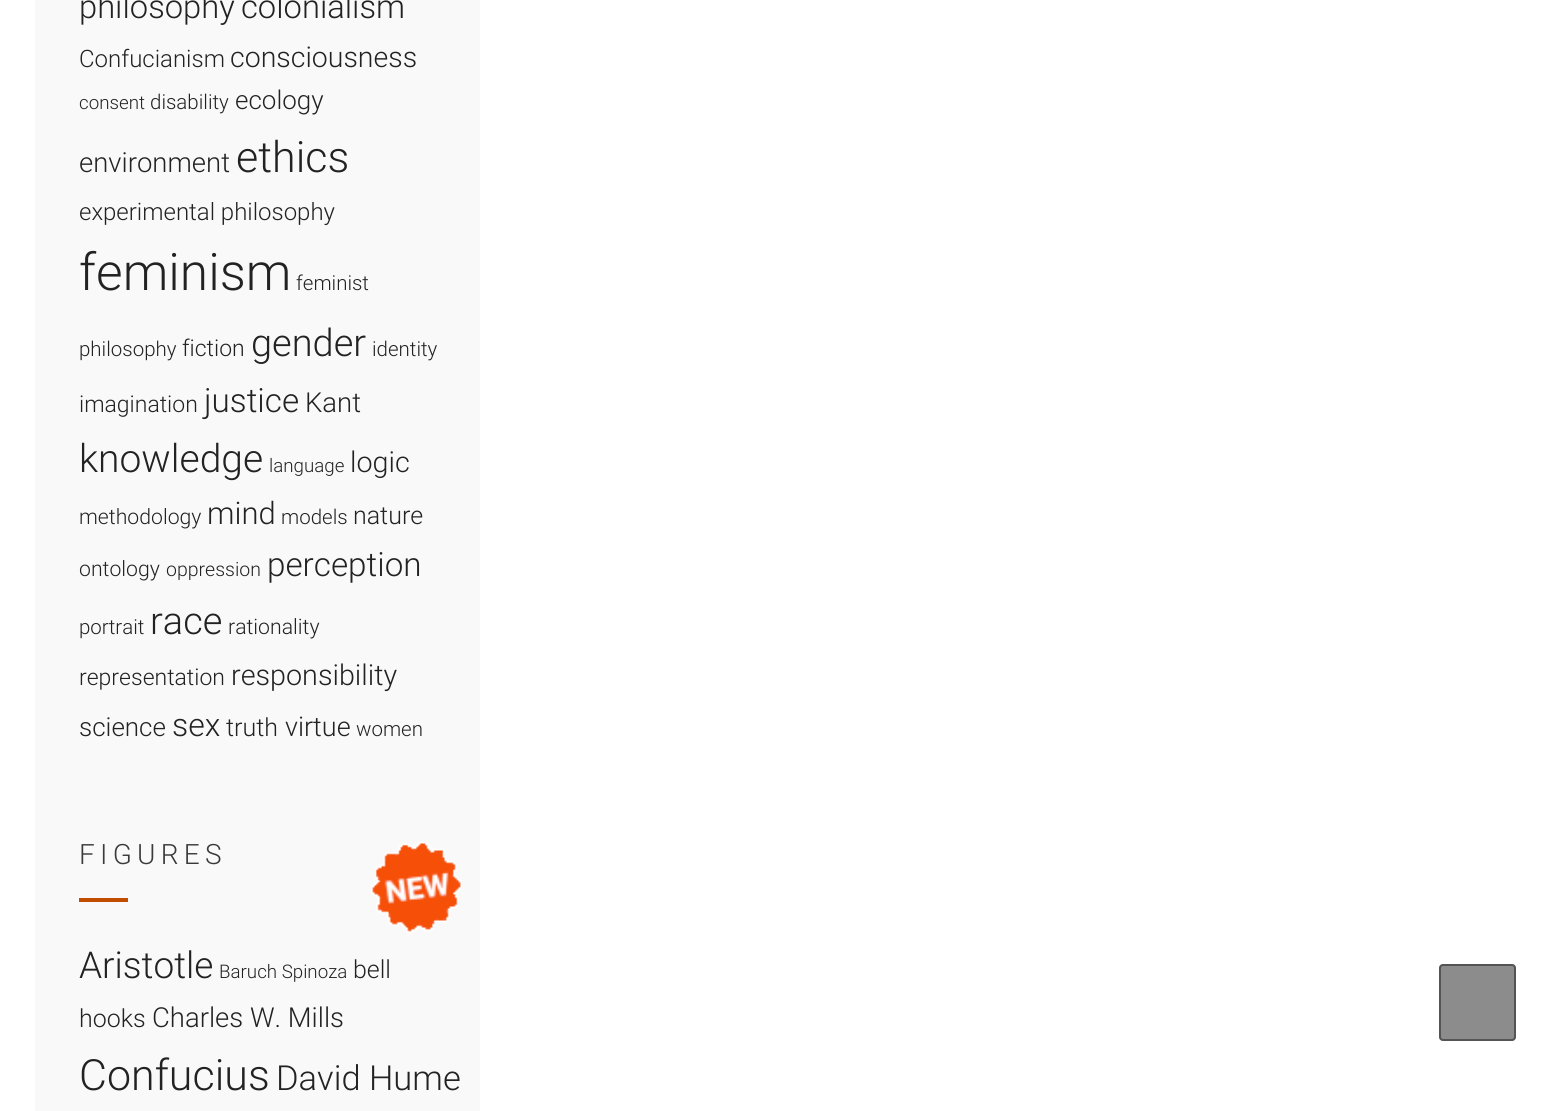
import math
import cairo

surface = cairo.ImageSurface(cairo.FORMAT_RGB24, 1550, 1111)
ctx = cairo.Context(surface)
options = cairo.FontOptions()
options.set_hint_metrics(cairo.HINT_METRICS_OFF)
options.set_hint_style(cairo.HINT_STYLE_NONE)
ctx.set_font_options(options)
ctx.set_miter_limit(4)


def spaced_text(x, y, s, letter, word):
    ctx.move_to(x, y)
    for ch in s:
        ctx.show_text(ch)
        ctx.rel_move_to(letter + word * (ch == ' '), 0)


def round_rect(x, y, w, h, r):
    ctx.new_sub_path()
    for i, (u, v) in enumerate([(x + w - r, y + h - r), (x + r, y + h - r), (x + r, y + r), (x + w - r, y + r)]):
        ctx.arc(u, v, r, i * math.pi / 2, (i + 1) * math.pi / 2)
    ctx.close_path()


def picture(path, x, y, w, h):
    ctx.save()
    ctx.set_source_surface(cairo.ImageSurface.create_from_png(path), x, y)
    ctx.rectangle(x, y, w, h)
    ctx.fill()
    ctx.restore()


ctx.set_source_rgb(1, 1, 1)
ctx.paint()
ctx.set_source_rgb(0.976, 0.976, 0.976)
ctx.rectangle(35, 0, 445, 1111)
ctx.fill()
ctx.select_font_face("Roboto Light")
ctx.set_font_size(32.75)
ctx.set_source_rgb(0.133, 0.133, 0.133)
ctx.move_to(79, 18)
ctx.show_text("philosophy")
ctx.move_to(241, 18)
ctx.show_text("colonialism")
ctx.set_font_size(24)
ctx.move_to(79, 67)
ctx.show_text("Confucianism")
ctx.set_font_size(28.5)
ctx.move_to(230, 67)
ctx.show_text("consciousness")
ctx.set_font_size(18.75)
ctx.move_to(79, 109)
ctx.show_text("consent")
ctx.set_font_size(20.5)
ctx.move_to(150, 109)
ctx.show_text("disability")
ctx.set_font_size(26)
ctx.move_to(235, 109)
ctx.show_text("ecology")
ctx.set_font_size(27.5)
ctx.move_to(79, 172)
ctx.show_text("environment")
ctx.set_font_size(43)
ctx.move_to(236, 172)
ctx.show_text("ethics")
ctx.set_font_size(24)
ctx.move_to(79, 220)
ctx.show_text("experimental philosophy")
ctx.set_font_size(51.5)
ctx.move_to(79, 290)
ctx.show_text("feminism")
ctx.set_font_size(20.5)
ctx.move_to(296, 290)
ctx.show_text("feminist")
ctx.move_to(79, 356)
ctx.show_text("philosophy")
ctx.set_font_size(23)
ctx.move_to(182, 356)
ctx.show_text("fiction")
ctx.set_font_size(38)
ctx.move_to(251, 356)
ctx.show_text("gender")
ctx.set_font_size(20.5)
ctx.move_to(372, 356)
ctx.show_text("identity")
ctx.set_font_size(23)
ctx.move_to(79, 412)
ctx.show_text("imagination")
ctx.set_font_size(33.25)
ctx.move_to(204, 412)
ctx.show_text("justice")
ctx.set_font_size(27.5)
ctx.move_to(305, 412)
ctx.show_text("Kant")
ctx.set_font_size(39)
ctx.move_to(79, 472)
ctx.show_text("knowledge")
ctx.set_font_size(18.75)
ctx.move_to(269, 472)
ctx.show_text("language")
ctx.set_font_size(28.75)
ctx.move_to(350, 472)
ctx.show_text("logic")
ctx.set_font_size(21.25)
ctx.move_to(79, 524)
ctx.show_text("methodology")
ctx.set_font_size(31)
ctx.move_to(207, 524)
ctx.show_text("mind")
ctx.set_font_size(20.5)
ctx.move_to(281, 524)
ctx.show_text("models")
ctx.set_font_size(25)
ctx.move_to(353, 524)
ctx.show_text("nature")
ctx.set_font_size(21.25)
ctx.move_to(79, 576)
ctx.show_text("ontology")
ctx.set_font_size(19.5)
ctx.move_to(166, 576)
ctx.show_text("oppression")
ctx.set_font_size(33.25)
ctx.move_to(267, 576)
ctx.show_text("perception")
ctx.set_font_size(20.5)
ctx.move_to(79, 634)
ctx.show_text("portrait")
ctx.set_font_size(38)
ctx.move_to(150, 634)
ctx.show_text("race")
ctx.set_font_size(21.25)
ctx.move_to(228, 634)
ctx.show_text("rationality")
ctx.set_font_size(23)
ctx.move_to(79, 685)
ctx.show_text("representation")
ctx.set_font_size(28.75)
ctx.move_to(231, 685)
ctx.show_text("responsibility")
ctx.set_font_size(26)
ctx.move_to(79, 736)
ctx.show_text("science")
ctx.set_font_size(32)
ctx.move_to(172, 736)
ctx.show_text("sex")
ctx.set_font_size(25)
ctx.move_to(226, 736)
ctx.show_text("truth")
ctx.set_font_size(27)
ctx.move_to(285, 736)
ctx.show_text("virtue")
ctx.set_font_size(20.5)
ctx.move_to(356, 736)
ctx.show_text("women")
picture("img1.png", 371, 842, 91, 91)
ctx.set_font_size(28)
ctx.set_source_rgb(0.227, 0.227, 0.227)
spaced_text(79, 864, "FIGURES", 5.25, 0)
ctx.set_source_rgb(0.761, 0.298, 0)
ctx.rectangle(79, 898, 49, 4)
ctx.fill()
ctx.set_font_size(37)
ctx.set_source_rgb(0.133, 0.133, 0.133)
ctx.move_to(79, 978)
ctx.show_text("Aristotle")
ctx.set_font_size(18.75)
ctx.move_to(219, 978)
ctx.show_text("Baruch Spinoza")
ctx.set_font_size(25)
ctx.move_to(353, 978)
ctx.show_text("bell")
ctx.move_to(79, 1027)
ctx.show_text("hooks")
ctx.set_font_size(27.5)
ctx.move_to(152, 1027)
ctx.show_text("Charles W. Mills")
ctx.set_font_size(43)
ctx.move_to(79, 1090)
ctx.show_text("Confucius")
ctx.set_font_size(34.5)
ctx.move_to(276, 1090)
ctx.show_text("David Hume")
ctx.set_source_rgb(0.549, 0.549, 0.549)
round_rect(1439, 964, 77, 77, 4)
ctx.fill()
round_rect(1440, 965, 75, 75, 3)
ctx.set_source_rgba(0, 0, 0, 0.4)
ctx.stroke()
surface.write_to_png("page.png")
